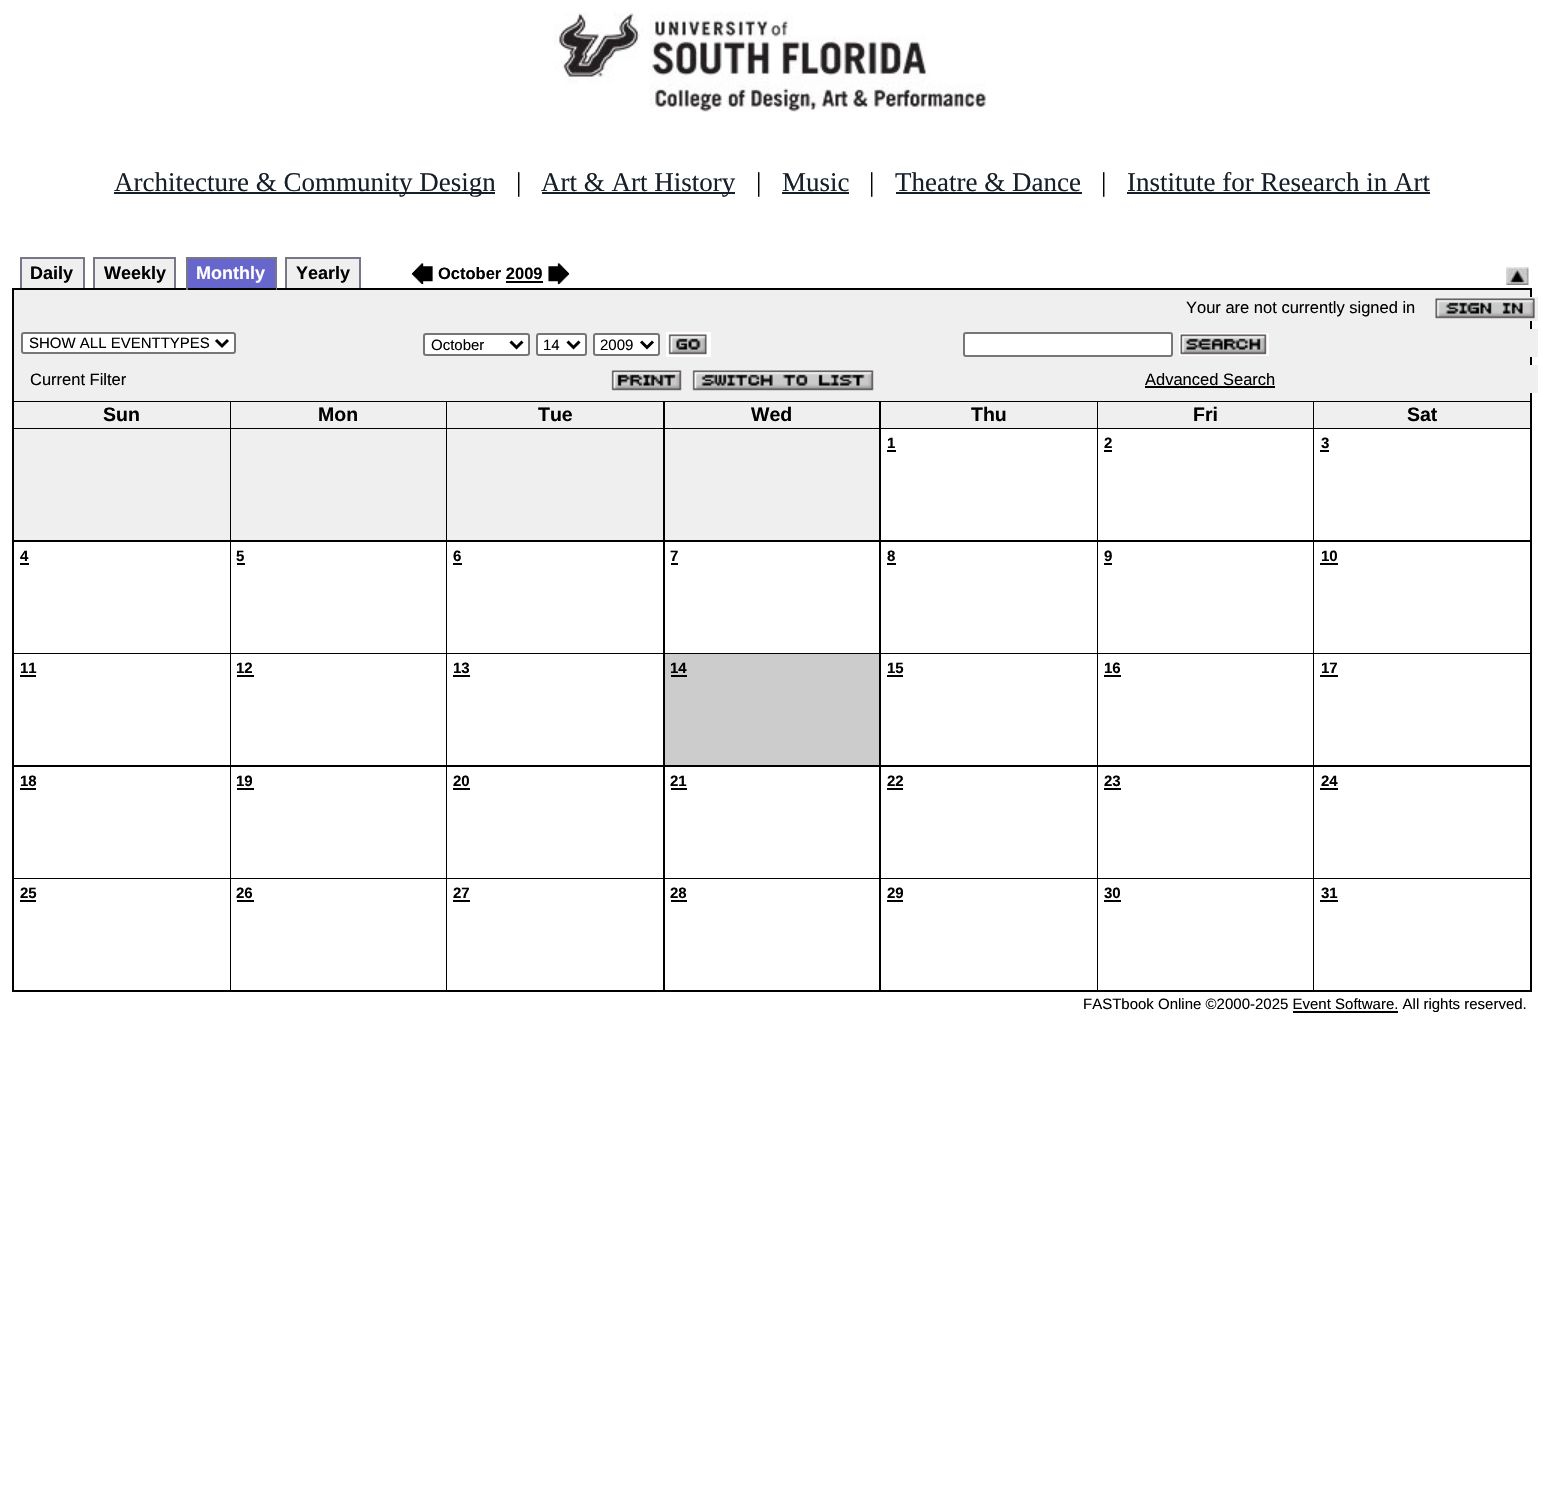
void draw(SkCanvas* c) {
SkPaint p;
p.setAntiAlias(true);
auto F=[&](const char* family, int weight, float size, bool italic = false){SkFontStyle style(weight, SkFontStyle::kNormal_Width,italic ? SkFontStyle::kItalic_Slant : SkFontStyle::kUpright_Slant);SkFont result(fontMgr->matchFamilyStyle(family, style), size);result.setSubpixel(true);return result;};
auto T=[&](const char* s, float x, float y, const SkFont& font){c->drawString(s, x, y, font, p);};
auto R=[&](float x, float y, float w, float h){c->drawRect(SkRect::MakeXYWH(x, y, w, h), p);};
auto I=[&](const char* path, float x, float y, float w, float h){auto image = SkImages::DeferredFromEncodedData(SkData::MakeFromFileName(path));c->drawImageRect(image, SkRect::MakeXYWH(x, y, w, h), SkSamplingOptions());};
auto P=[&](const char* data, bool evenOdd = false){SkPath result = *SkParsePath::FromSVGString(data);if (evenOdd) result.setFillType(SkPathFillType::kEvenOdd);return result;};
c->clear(0xffffffff);
I("1.png",554,12,432,101);
p.setColor(0xff17202a);
R(114,192,381,2);
auto f1 = F("Liberation Serif",400,27);
T("Architecture & Community Design",114,191,f1);
p.setColor(0xff000000);
T("|",516,191,f1);
p.setColor(0xff17202a);
R(542,192,193,2);
T("Art & Art History",541,191,f1);
p.setColor(0xff000000);
T("|",756,191,f1);
p.setColor(0xff17202a);
T("Music",782,191,f1);
R(782,192,67,2);
p.setColor(0xff000000);
T("|",869,191,f1);
p.setColor(0xff17202a);
T("Theatre & Dance",895,191,f1);
R(896,192,186,2);
p.setColor(0xff000000);
T("|",1101,191,f1);
p.setColor(0xff17202a);
T("Institute for Research in Art",1127,191,f1);
R(1127,192,303,2);
p.setColor(0xffefefef);
R(22,259,61,29);
auto f2 = F("Liberation Sans",700,18);
p.setColor(0xff000000);
T("Daily",30,279,f2);
p.setColor(0xff777788);
R(20,257,64,2);
R(83,257,2,31);
R(20,257,2,31);
p.setColor(0xffefefef);
R(95,259,79,29);
p.setColor(0xff000000);
T("Weekly",104,279,f2);
p.setColor(0xff777788);
R(93,257,83,2);
R(174,257,2,31);
R(93,257,2,31);
p.setColor(0xff6666cc);
R(188,259,87,29);
p.setColor(0xffffffff);
T("Monthly",196,279,f2);
p.setColor(0xff777788);
R(186,257,90,2);
p.setColor(0xff000000);
R(12,288,1520,2);
p.setColor(0xff777788);
R(275,257,2,33);
p.setColor(0xff000000);
R(275,288,1,2);
p.setColor(0xff777788);
R(186,257,2,33);
p.setColor(0xffefefef);
R(287,259,72,29);
p.setColor(0xff000000);
T("Yearly",296,279,f2);
p.setColor(0xff777788);
R(285,257,75,2);
R(359,257,2,31);
R(285,257,2,31);
I("2.png",411,263,22,22);
auto f3 = F("Liberation Sans",700,16.5);
p.setColor(0xff000000);
T("October 2009",438,279,f3);
R(506,281,37,2);
I("3.png",548,263,22,22);
I("4.png",1506,267,23,18);
p.setColor(0xffefefef);
R(14,290,1516,111);
p.setColor(0xff000000);
R(1530,288,2,113);
R(12,288,2,113);
p.setColor(0xffefefef);
R(1530,297,8,24);
auto f4 = F("Liberation Sans",400,16.5);
p.setColor(0xff000000);
T("Your are not currently signed in",1186,313,f4);
I("5.png",1435,298,100,21);
p.setColor(0xffefefef);
R(1530,329,8,28);
p.setColor(0xffffffff);
c->drawRoundRect(SkRect::MakeXYWH(22,333,213,20),2,2,p);
p.setStroke(true);
p.setStrokeWidth(2);
p.setColor(0xff767676);
c->drawRoundRect(SkRect::MakeXYWH(22,333,213,20),2,2,p);
p.setStrokeWidth(3);
p.setColor(0xff000000);
c->drawPath(P("M216 340l6 6l6-6"),p);
auto f5 = F("Liberation Sans",400,15);
p.setStroke(false);
T("SHOW ALL EVENTTYPES",29,348,f5);
p.setColor(0xffffffff);
c->drawRoundRect(SkRect::MakeXYWH(424,334,105,21),2,2,p);
p.setStroke(true);
p.setStrokeWidth(2);
p.setColor(0xff767676);
c->drawRoundRect(SkRect::MakeXYWH(424,334,105,21),2,2,p);
p.setStrokeWidth(3);
p.setColor(0xff000000);
c->drawPath(P("M510.5 341.5l6 6l6-6"),p);
p.setStroke(false);
T("October",431,350,f5);
p.setColor(0xffffffff);
c->drawRoundRect(SkRect::MakeXYWH(537,334,49,21),2,2,p);
p.setStroke(true);
p.setStrokeWidth(2);
p.setColor(0xff767676);
c->drawRoundRect(SkRect::MakeXYWH(537,334,49,21),2,2,p);
p.setStrokeWidth(3);
p.setColor(0xff000000);
c->drawPath(P("M567.5 341.5l6 6l6-6"),p);
p.setStroke(false);
T("14",543,350,f5);
p.setColor(0xffffffff);
c->drawRoundRect(SkRect::MakeXYWH(594,334,65,21),2,2,p);
p.setStroke(true);
p.setStrokeWidth(2);
p.setColor(0xff767676);
c->drawRoundRect(SkRect::MakeXYWH(594,334,65,21),2,2,p);
p.setStrokeWidth(3);
p.setColor(0xff000000);
c->drawPath(P("M641 341.5l6 6l6-6"),p);
p.setStroke(false);
T("2009",600,350,f5);
p.setColor(0xffffffff);
R(666,332,45,25);
I("6.png",668,334,39,21);
c->drawRoundRect(SkRect::MakeXYWH(964,333,208,23),2,2,p);
p.setStroke(true);
p.setStrokeWidth(2);
p.setColor(0xff767676);
c->drawRoundRect(SkRect::MakeXYWH(964,333,208,23),2,2,p);
p.setStroke(false);
p.setColor(0xffffffff);
R(1179,333,90,23);
I("7.png",1180,334,87,21);
p.setColor(0xffefefef);
R(1530,365,8,28);
p.setColor(0xff000000);
T("Current Filter",30,385,f4);
I("8.png",611,370,71,21);
I("9.png",692,370,182,21);
T("Advanced Search",1145,385,f4);
R(1145,386,130,2);
R(12,401,1520,1);
R(12,401,2,591);
p.setColor(0xffefefef);
R(14,402,1083,26);
p.setColor(0xff000000);
R(1530,402,2,590);
R(14,428,1518,1);
R(230,402,2,27);
auto f6 = F("Liberation Sans",700,19.5);
T("Sun",103,421,f6);
p.setColor(0xffefefef);
R(231,402,1,26);
p.setColor(0xff000000);
R(446,402,2,27);
T("Mon",318,421,f6);
p.setColor(0xffefefef);
R(447,402,1,26);
p.setColor(0xff000000);
R(663,402,2,590);
T("Tue",538,421,f6);
R(879,402,2,590);
T("Wed",751,421,f6);
R(1097,402,2,27);
T("Thu",971,421,f6);
p.setColor(0xffefefef);
R(1098,402,215,26);
p.setColor(0xff000000);
R(1313,402,2,27);
T("Fri",1193,421,f6);
p.setColor(0xffefefef);
R(1314,402,216,26);
p.setColor(0xff000000);
T("Sat",1407,421,f6);
p.setColor(0xffefefef);
R(14,429,216,111);
p.setColor(0xff000000);
R(230,429,1,563);
R(14,540,217,2);
p.setColor(0xffefefef);
R(231,429,215,111);
p.setColor(0xff000000);
R(446,429,1,563);
R(231,540,650,2);
p.setColor(0xffefefef);
R(447,429,216,111);
R(665,429,214,111);
p.setColor(0xff000000);
R(1097,429,1,563);
R(881,540,217,2);
auto f7 = F("Liberation Sans",700,15);
T("1",887,448,f7);
R(887,450,9,2);
R(1313,429,1,563);
R(1098,540,434,2);
T("2",1104,448,f7);
R(1104,450,8,2);
T("3",1321,448,f7);
R(1320,450,9,2);
R(14,653,1518,1);
T("4",20,561,f7);
R(20,563,9,2);
T("5",236,561,f7);
R(237,563,8,2);
T("6",453,561,f7);
R(453,563,9,2);
T("7",670,561,f7);
R(671,563,7,2);
T("8",887,561,f7);
R(887,563,9,2);
T("9",1104,561,f7);
R(1104,563,8,2);
T("10",1321,561,f7);
R(1320,563,18,2);
R(14,765,1518,2);
T("11",20,673,f7);
R(20,675,16,2);
T("12",236,673,f7);
R(237,675,17,2);
T("13",453,673,f7);
R(453,675,17,2);
p.setColor(0xffcccccc);
R(665,654,214,111);
p.setColor(0xff000000);
T("14",670,673,f7);
R(671,675,16,2);
T("15",887,673,f7);
R(887,675,16,2);
T("16",1104,673,f7);
R(1104,675,17,2);
T("17",1321,673,f7);
R(1320,675,18,2);
R(14,878,1518,1);
T("18",20,786,f7);
R(20,788,16,2);
T("19",236,786,f7);
R(237,788,17,2);
T("20",453,786,f7);
R(453,788,17,2);
T("21",670,786,f7);
R(671,788,16,2);
T("22",887,786,f7);
R(887,788,16,2);
T("23",1104,786,f7);
R(1104,788,17,2);
T("24",1321,786,f7);
R(1320,788,18,2);
R(14,990,1518,2);
T("25",20,898,f7);
R(20,900,16,2);
T("26",236,898,f7);
R(237,900,17,2);
T("27",453,898,f7);
R(453,900,17,2);
T("28",670,898,f7);
R(671,900,16,2);
T("29",887,898,f7);
R(887,900,16,2);
T("30",1104,898,f7);
R(1104,900,17,2);
T("31",1321,898,f7);
R(1320,900,18,2);
T("FASTbook Online ©2000-2025 Event Software. All rights reserved.",1083,1009,f5);
R(1293,1011,105,2);
}
